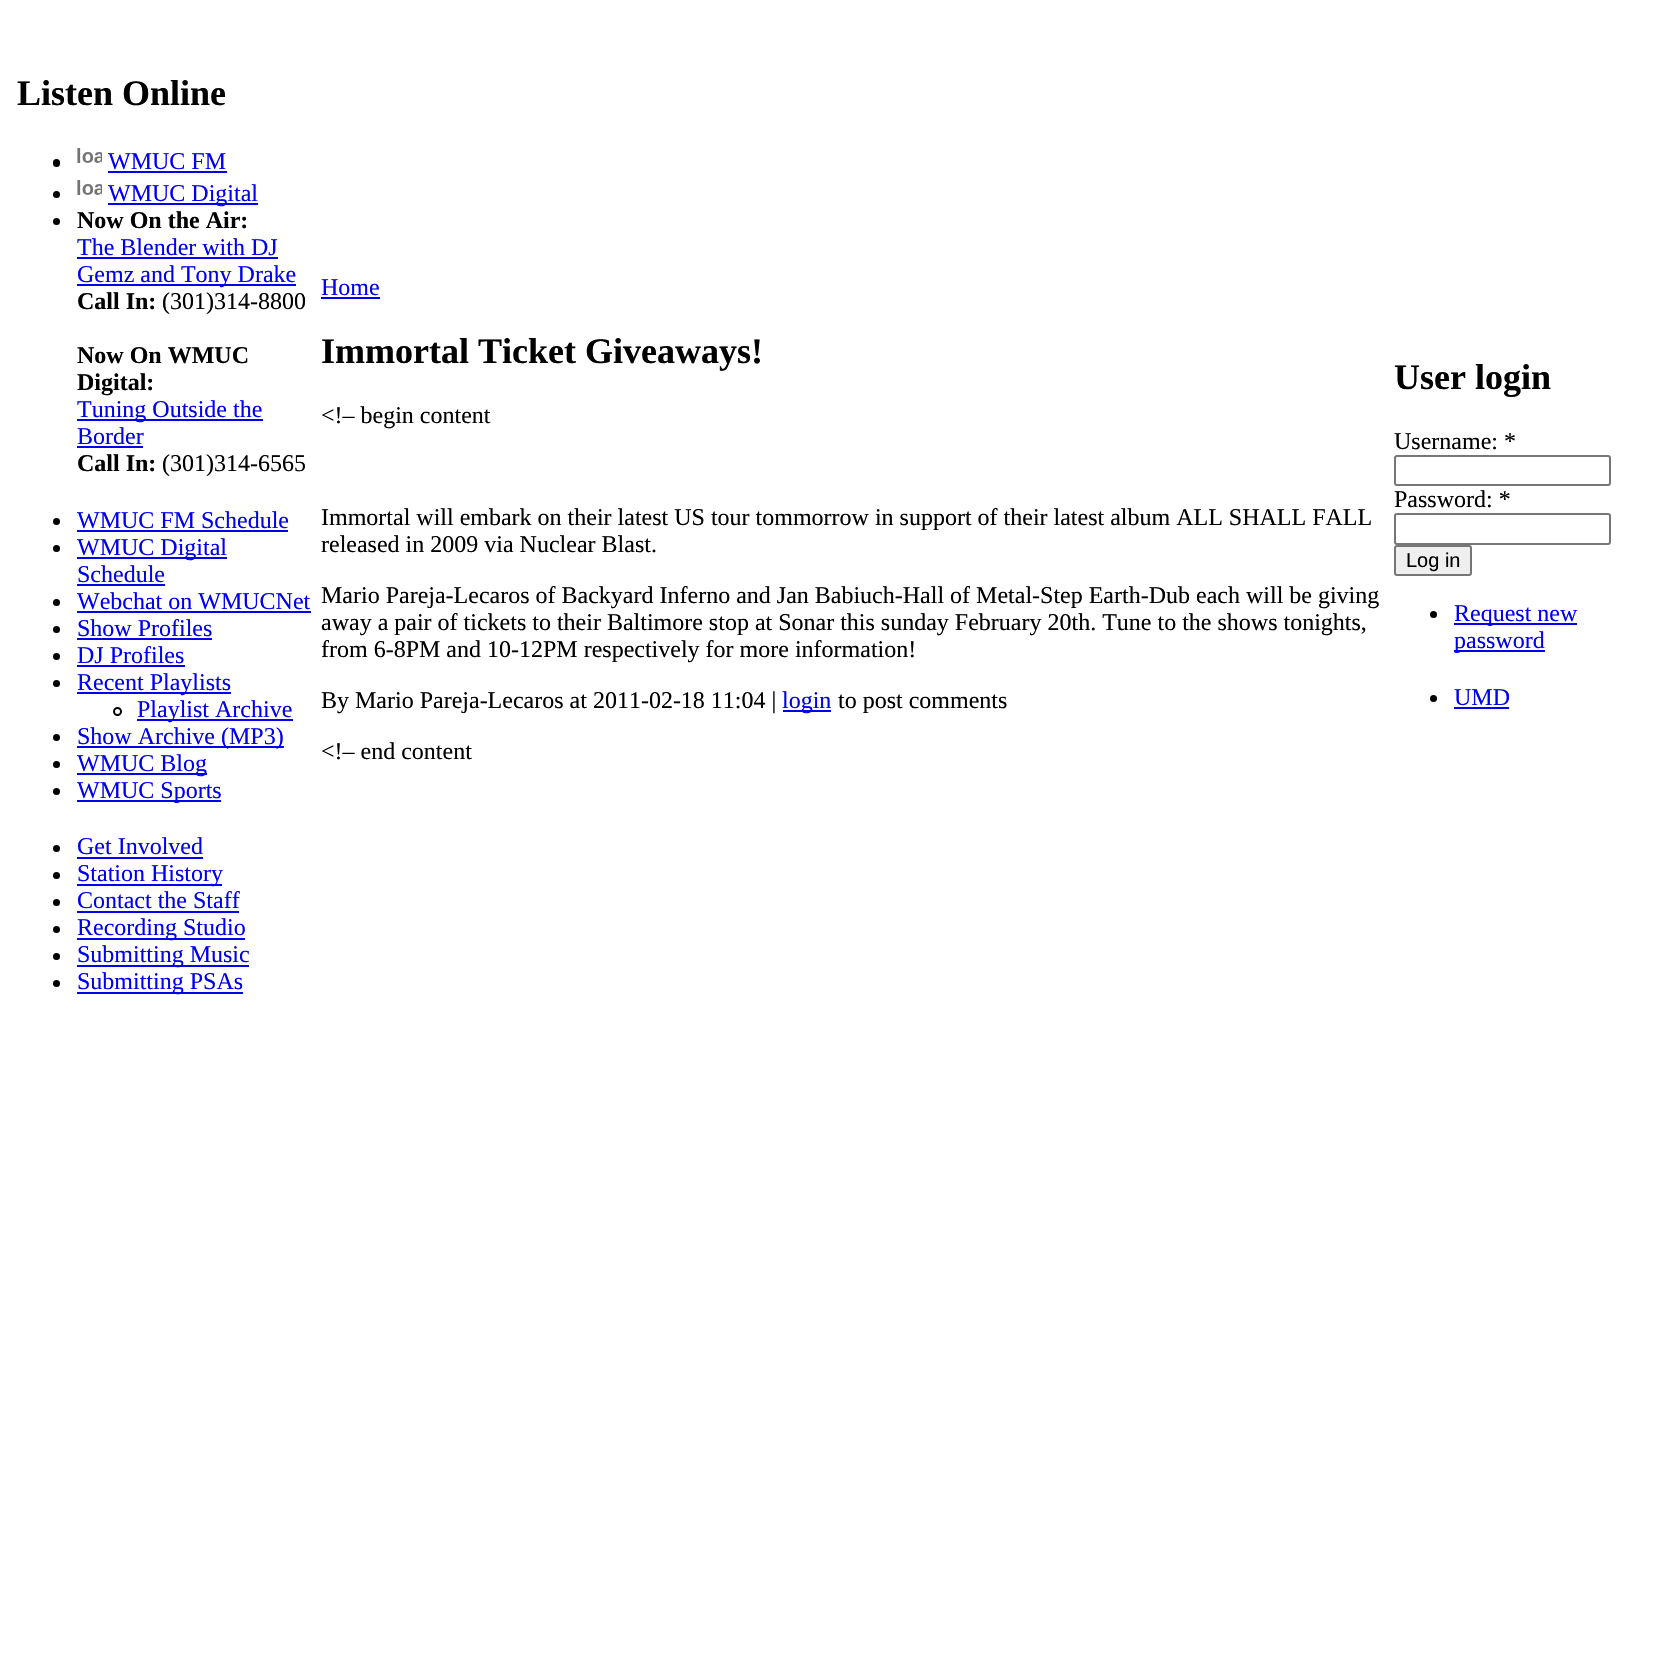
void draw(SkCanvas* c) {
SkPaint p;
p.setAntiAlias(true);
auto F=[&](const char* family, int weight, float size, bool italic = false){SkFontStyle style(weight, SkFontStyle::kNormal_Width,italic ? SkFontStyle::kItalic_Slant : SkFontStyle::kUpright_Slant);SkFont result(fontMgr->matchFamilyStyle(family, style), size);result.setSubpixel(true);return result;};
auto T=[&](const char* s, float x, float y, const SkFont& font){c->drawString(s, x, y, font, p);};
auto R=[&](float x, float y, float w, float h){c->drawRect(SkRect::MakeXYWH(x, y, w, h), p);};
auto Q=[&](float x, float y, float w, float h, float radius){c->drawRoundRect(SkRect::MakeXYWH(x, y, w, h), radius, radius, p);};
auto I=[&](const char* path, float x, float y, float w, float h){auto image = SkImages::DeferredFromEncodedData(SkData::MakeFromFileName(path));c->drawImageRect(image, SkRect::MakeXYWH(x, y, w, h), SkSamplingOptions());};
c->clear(0xffffffff);
auto f1 = F("Liberation Serif",700,36);
p.setColor(0xff000000);
T("Listen Online",17,105,f1);
Q(53,159,7,8,3.5);
I("1.png",77,148,25,15);
auto f2 = F("Liberation Serif",400,24);
p.setColor(0xff0000ee);
T("WMUC FM",108,169,f2);
R(108,171,119,2);
p.setColor(0xff000000);
c->drawCircle(56.5,194.5,3.5,p);
I("1.png",77,180,25,15);
p.setColor(0xff0000ee);
R(108,203,150,2);
T("WMUC Digital",108,201,f2);
p.setColor(0xff000000);
c->drawCircle(56.5,221.5,3.5,p);
auto f3 = F("Liberation Serif",700,24);
T("Now On the Air:",77,228,f3);
p.setColor(0xff0000ee);
T("The Blender with DJ",77,255,f2);
R(77,257,201,2);
R(77,284,219,2);
T("Gemz and Tony Drake",77,282,f2);
p.setColor(0xff000000);
T("Call In:",77,309,f3);
T("(301)314-8800",162,309,f2);
T("Now On WMUC",77,363,f3);
T("Digital:",77,390,f3);
p.setColor(0xff0000ee);
R(77,419,186,2);
T("Tuning Outside the",77,417,f2);
T("Border",77,444,f2);
R(77,446,66,2);
p.setColor(0xff000000);
T("Call In:",77,471,f3);
T("(301)314-6565",162,471,f2);
c->drawCircle(56.5,521.5,3.5,p);
p.setColor(0xff0000ee);
T("WMUC FM Schedule",77,528,f2);
R(77,530,211,2);
p.setColor(0xff000000);
c->drawCircle(56.5,548.5,3.5,p);
p.setColor(0xff0000ee);
R(77,557,150,2);
T("WMUC Digital",77,555,f2);
T("Schedule",77,582,f2);
R(77,584,88,2);
p.setColor(0xff000000);
c->drawCircle(56.5,602.5,3.5,p);
p.setColor(0xff0000ee);
T("Webchat on WMUCNet",77,609,f2);
R(77,611,234,2);
p.setColor(0xff000000);
c->drawCircle(56.5,629.5,3.5,p);
p.setColor(0xff0000ee);
T("Show Profiles",77,636,f2);
R(77,638,135,2);
p.setColor(0xff000000);
c->drawCircle(56.5,656.5,3.5,p);
p.setColor(0xff0000ee);
T("DJ Profiles",77,663,f2);
R(77,665,108,2);
p.setColor(0xff000000);
c->drawCircle(56.5,683.5,3.5,p);
p.setColor(0xff0000ee);
R(77,692,154,2);
T("Recent Playlists",77,690,f2);
p.setStroke(true);
p.setStrokeWidth(2);
p.setColor(0xff000000);
c->drawCircle(117.5,711.5,3.5,p);
p.setStroke(false);
p.setColor(0xff0000ee);
R(137,719,156,2);
T("Playlist Archive",137,717,f2);
p.setColor(0xff000000);
c->drawCircle(56.5,737.5,3.5,p);
p.setColor(0xff0000ee);
R(77,746,207,2);
T("Show Archive (MP3)",77,744,f2);
p.setColor(0xff000000);
c->drawCircle(56.5,764.5,3.5,p);
p.setColor(0xff0000ee);
R(77,773,130,2);
T("WMUC Blog",77,771,f2);
p.setColor(0xff000000);
c->drawCircle(56.5,791.5,3.5,p);
p.setColor(0xff0000ee);
R(77,800,144,2);
T("WMUC Sports",77,798,f2);
p.setColor(0xff000000);
c->drawCircle(56.5,848.5,3.5,p);
p.setColor(0xff0000ee);
T("Get Involved",77,854,f2);
R(77,857,126,2);
p.setColor(0xff000000);
c->drawCircle(56.5,875.5,3.5,p);
p.setColor(0xff0000ee);
R(77,884,145,2);
T("Station History",77,881,f2);
p.setColor(0xff000000);
c->drawCircle(56.5,902.5,3.5,p);
p.setColor(0xff0000ee);
T("Contact the Staff",77,908,f2);
R(77,911,162,2);
p.setColor(0xff000000);
c->drawCircle(56.5,929.5,3.5,p);
p.setColor(0xff0000ee);
R(77,938,168,2);
T("Recording Studio",77,935,f2);
p.setColor(0xff000000);
c->drawCircle(56.5,956.5,3.5,p);
p.setColor(0xff0000ee);
R(77,965,172,2);
T("Submitting Music",77,962,f2);
p.setColor(0xff000000);
c->drawCircle(56.5,983.5,3.5,p);
p.setColor(0xff0000ee);
R(77,992,166,2);
T("Submitting PSAs",77,989,f2);
T("Home",321,295,f2);
R(321,297,59,2);
p.setColor(0xff000000);
T("Immortal Ticket Giveaways!",321,363,f1);
T("<!– begin content",321,423,f2);
T("Immortal will embark on their latest US tour tommorrow in support of their latest album ALL SHALL FALL",321,525,f2);
T("released in 2009 via Nuclear Blast.",321,552,f2);
T("Mario Pareja-Lecaros of Backyard Inferno and Jan Babiuch-Hall of Metal-Step Earth-Dub each will be giving",321,603,f2);
T("away a pair of tickets to their Baltimore stop at Sonar this sunday February 20th. Tune to the shows tonights,",321,630,f2);
T("from 6-8PM and 10-12PM respectively for more information!",321,657,f2);
T("By Mario Pareja-Lecaros at 2011-02-18 11:04 |",321,708,f2);
p.setColor(0xff0000ee);
R(783,710,48,2);
T("login",782,708,f2);
p.setColor(0xff000000);
T("to post comments",838,708,f2);
T("<!– end content",321,759,f2);
T("User login",1394,389,f1);
T("Username: *",1394,449,f2);
p.setStroke(true);
p.setColor(0xff767676);
c->drawRoundRect(SkRect::MakeXYWH(1395,456,215,29),2,2,p);
p.setStroke(false);
p.setColor(0xff000000);
T("Password: *",1394,507,f2);
p.setStroke(true);
p.setColor(0xff767676);
c->drawRoundRect(SkRect::MakeXYWH(1395,514,215,30),2,2,p);
p.setStroke(false);
p.setColor(0xffefefef);
c->drawRoundRect(SkRect::MakeXYWH(1395,546,76,29),2,2,p);
p.setStroke(true);
p.setColor(0xff767676);
c->drawRoundRect(SkRect::MakeXYWH(1395,546,76,29),2,2,p);
auto f4 = F("Liberation Sans",400,20);
p.setStroke(false);
p.setColor(0xff000000);
T("Log in",1406,567,f4);
c->drawCircle(1433.5,614.5,3.5,p);
p.setColor(0xff0000ee);
R(1454,623,123,2);
T("Request new",1454,621,f2);
R(1454,650,91,2);
T("password",1454,648,f2);
p.setColor(0xff000000);
c->drawCircle(1433.5,698.5,3.5,p);
p.setColor(0xff0000ee);
T("UMD",1454,705,f2);
R(1454,707,55,2);
}
